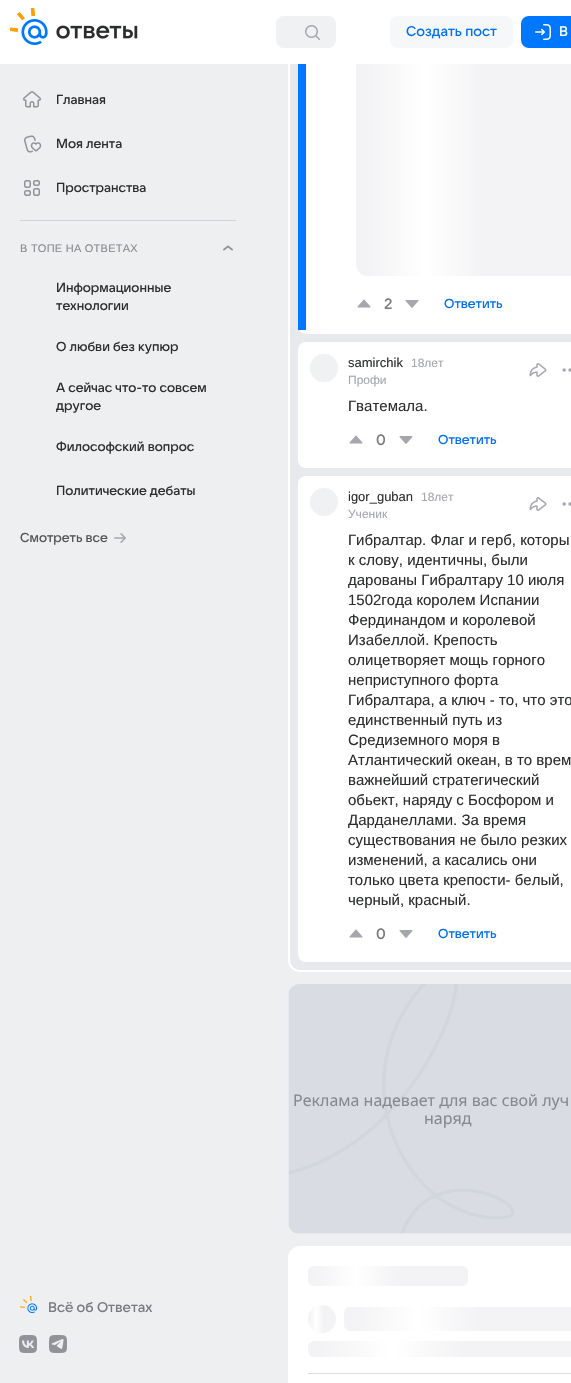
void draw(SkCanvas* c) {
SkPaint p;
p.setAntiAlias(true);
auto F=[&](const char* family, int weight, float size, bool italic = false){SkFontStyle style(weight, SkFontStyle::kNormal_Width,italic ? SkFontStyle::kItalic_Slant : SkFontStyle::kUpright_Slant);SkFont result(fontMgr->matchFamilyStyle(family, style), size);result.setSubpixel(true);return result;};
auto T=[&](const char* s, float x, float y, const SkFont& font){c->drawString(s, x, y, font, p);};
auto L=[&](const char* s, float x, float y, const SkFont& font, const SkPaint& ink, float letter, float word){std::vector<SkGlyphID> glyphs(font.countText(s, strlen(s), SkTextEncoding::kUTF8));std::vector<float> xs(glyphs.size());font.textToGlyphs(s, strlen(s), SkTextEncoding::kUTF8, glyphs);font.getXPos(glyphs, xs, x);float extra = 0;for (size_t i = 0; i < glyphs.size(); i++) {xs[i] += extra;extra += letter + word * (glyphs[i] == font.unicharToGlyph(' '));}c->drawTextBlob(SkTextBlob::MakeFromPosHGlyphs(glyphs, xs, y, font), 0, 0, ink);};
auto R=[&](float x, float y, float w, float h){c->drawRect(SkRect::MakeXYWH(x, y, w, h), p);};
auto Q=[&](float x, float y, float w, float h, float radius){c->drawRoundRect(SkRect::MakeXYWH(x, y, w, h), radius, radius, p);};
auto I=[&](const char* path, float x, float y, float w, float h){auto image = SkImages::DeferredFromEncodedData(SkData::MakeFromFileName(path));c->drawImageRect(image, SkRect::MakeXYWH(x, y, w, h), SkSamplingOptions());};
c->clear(0xffeeeff1);
p.setColor(0xffffffff);
Q(288,-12,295,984,12);
p.setColor(0xffe7e9ec);
Q(290,-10,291,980,10);
p.setColor(0xffffffff);
Q(298,-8,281,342,8);
{
const SkColor colors[] = {0xfff3f3f5,0xffffffff,0xfff3f3f5};
const float stops[] = {.05,.3,.55};
const SkPoint ends[] = {{356,156}, {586,156}};
p.setShader(SkGradientShader::MakeLinear(ends, colors, stops, 3, SkTileMode::kClamp));
p.setAlpha(255);
}
Q(356,36,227,240,12);
p.setShader(nullptr);
p.setColor(0xffffffff);
R(0,0,571,64);
I("1.png",10,8,128,37);
p.setColor(0xfff0f1f3);
Q(276,16,60,32,8);
I("2.png",305,25,15,15);
p.setColor(0xfff6f7f8);
Q(390,16,123,32,8);
auto f1 = F("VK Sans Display",500,14);
p.setColor(0xff0070f0);
T("Создать пост",406,36,f1);
p.setColor(0xff0077ff);
Q(521,16,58,32,8);
I("3.png",535,24,16,16);
p.setColor(0xffffffff);
T("В",559,36,f1);
I("4.png",23,91,18,17);
auto f2 = F("VK Sans Display",500,13);
p.setColor(0xff2c2d2e);
T("Главная",56,104,f2);
I("5.png",24,135,18,18);
T("Моя лента",56,148,f2);
I("6.png",24,180,16,16);
T("Пространства",56,192,f2);
p.setColor(0xffd1d4db);
R(20,220,216,1);
auto f3 = F("Liberation Sans",400,11);
p.setColor(0xff87898f);
L("В ТОПЕ НА ОТВЕТАХ",20,252,f3,p,.25,0);
I("7.png",223,245,10,6);
p.setColor(0xff2c2d2e);
T("Информационные",56,292,f2);
T("технологии",56,310,f2);
T("О любви без купюр",56,351,f2);
T("А сейчас что-то совсем",56,392,f2);
T("другое",56,410,f2);
T("Философский вопрос",56,451,f2);
T("Политические дебаты",56,495,f2);
p.setColor(0xff535455);
T("Смотреть все",20,542,f2);
I("8.png",114,533,12,10);
I("9.png",20,1296,18,18);
p.setColor(0xff797a80);
T("Всё об Ответах",48,1312,f1);
I("10.png",19,1335,18,18);
I("11.png",49,1335,18,18);
p.setColor(0xff0077ff);
R(298,64,8,266);
I("12.png",357,299,14,9);
auto f4 = F("VK Sans Display",500,15);
p.setColor(0xff797a80);
T("2",384,309,f4);
I("13.png",405,300,14,8);
p.setColor(0xff0070f0);
T("Ответить",444,308,f2);
p.setColor(0xffffffff);
Q(298,342,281,126,8);
p.setColor(0xfff0f1f3);
c->drawCircle(324,368,14,p);
auto f5 = F("Liberation Sans",400,13);
p.setColor(0xff2c2d2e);
T("samirchik",348,367,f5);
auto f6 = F("Liberation Sans",400,12);
p.setColor(0xffa5a7ad);
T("Профи",348,384,f6);
T("18лет",411,367,f6);
I("14.png",529,363,18,14);
I("15.png",562,368,9,4);
auto f7 = F("Liberation Sans",400,15);
p.setColor(0xff2c2d2e);
T("Гватемала.",348,411,f7);
I("12.png",349,435,14,9);
p.setColor(0xff797a80);
T("0",376,445,f4);
I("13.png",399,436,14,8);
p.setColor(0xff0070f0);
T("Ответить",438,444,f2);
p.setColor(0xffffffff);
Q(298,476,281,486,8);
p.setColor(0xfff0f1f3);
c->drawCircle(324,502,14,p);
p.setColor(0xff2c2d2e);
T("igor_guban",348,501,f5);
p.setColor(0xffa5a7ad);
T("Ученик",348,518,f6);
T("18лет",421,501,f6);
I("14.png",529,497,18,14);
I("15.png",562,502,9,4);
p.setColor(0xff2c2d2e);
T("Гибралтар. Флаг и герб, которы",348,545,f7);
T("к слову, идентичны, были",348,565,f7);
T("дарованы Гибралтару 10 июля",348,585,f7);
T("1502года королем Испании",348,605,f7);
T("Фердинандом и королевой",348,625,f7);
T("Изабеллой. Крепость",348,645,f7);
T("олицетворяет мощь горного",348,665,f7);
T("неприступного форта",348,685,f7);
T("Гибралтара, а ключ - то, что это",348,705,f7);
T("единственный путь из",348,725,f7);
T("Средиземного моря в",348,745,f7);
T("Атлантический океан, в то врем",348,765,f7);
T("важнейший стратегический",348,785,f7);
T("обьект, наряду с Босфором и",348,805,f7);
T("Дарданеллами. За время",348,825,f7);
T("существования не было резких",348,845,f7);
T("изменений, а касались они",348,865,f7);
T("только цвета крепости- белый,",348,885,f7);
T("черный, красный.",348,905,f7);
I("12.png",349,929,14,9);
p.setColor(0xff797a80);
T("0",376,939,f4);
I("13.png",399,930,14,8);
p.setColor(0xff0070f0);
T("Ответить",438,938,f2);
p.setColor(0xffe7e9ed);
Q(288,984,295,250,12);
I("16.png",289,984,282,249);
auto f8 = F("Noto Sans",400,16);
p.setColor(0xff87898f);
T("Реклама надевает для вас свой луч",293,1106,f8);
T("наряд",424,1124,f8);
p.setColor(0xffffffff);
Q(288,1246,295,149,12);
{
const SkColor colors[] = {0xfff3f3f5,0xffffffff,0xfff3f3f5};
const float stops[] = {.05,.3,.55};
const SkPoint ends[] = {{308,1276}, {468,1276}};
p.setShader(SkGradientShader::MakeLinear(ends, colors, stops, 3, SkTileMode::kClamp));
p.setAlpha(255);
}
Q(308,1266,160,20,6);
p.setShader(nullptr);
p.setColor(0xfff3f3f5);
c->drawCircle(322,1319,14,p);
{
const SkColor colors[] = {0x00ffffff,0xffffffff,0x00ffffff};
const float stops[] = {.05,.3,.55};
const SkPoint ends[] = {{308,1319}, {336,1319}};
p.setShader(SkGradientShader::MakeLinear(ends, colors, stops, 3, SkTileMode::kClamp));
p.setAlpha(255);
}
c->drawCircle(322,1319,14,p);
{
const SkColor colors[] = {0xfff3f3f5,0xffffffff,0xfff3f3f5};
const float stops[] = {.05,.3,.55};
const SkPoint ends[] = {{344,1319}, {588,1319}};
p.setShader(SkGradientShader::MakeLinear(ends, colors, stops, 3, SkTileMode::kClamp));
p.setAlpha(255);
}
Q(344,1307,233,24,6);
{
const SkColor colors[] = {0xfff3f3f5,0xffffffff,0xfff3f3f5};
const float stops[] = {.05,.3,.55};
const SkPoint ends[] = {{308,1349}, {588,1349}};
p.setShader(SkGradientShader::MakeLinear(ends, colors, stops, 3, SkTileMode::kClamp));
p.setAlpha(255);
}
Q(308,1341,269,16,6);
p.setShader(nullptr);
p.setColor(0xffdadce0);
R(308,1373,263,1);
}
